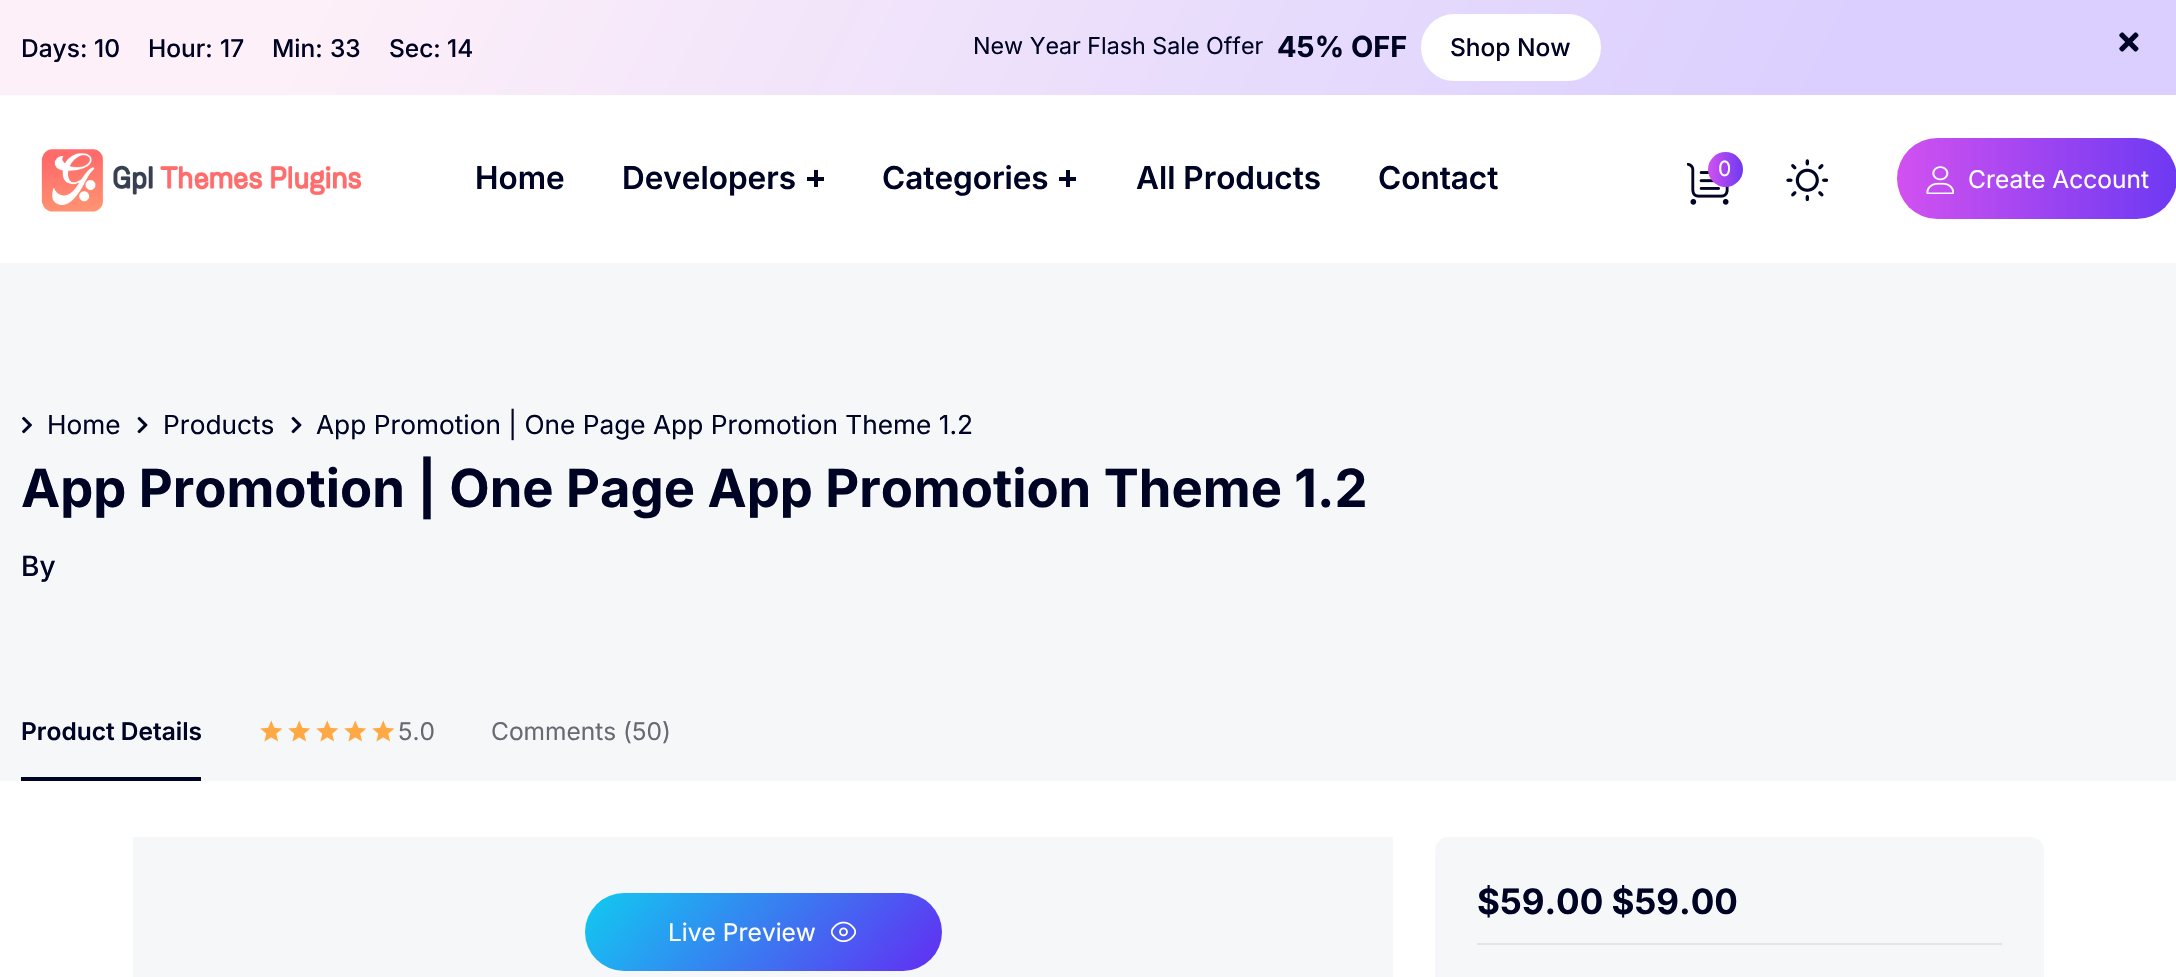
void draw(SkCanvas* c) {
SkPaint p;
p.setAntiAlias(true);
auto F=[&](const char* family, int weight, float size, bool italic = false){SkFontStyle style(weight, SkFontStyle::kNormal_Width,italic ? SkFontStyle::kItalic_Slant : SkFontStyle::kUpright_Slant);SkFont result(fontMgr->matchFamilyStyle(family, style), size);result.setSubpixel(true);return result;};
auto T=[&](const char* s, float x, float y, const SkFont& font){c->drawString(s, x, y, font, p);};
auto R=[&](float x, float y, float w, float h){c->drawRect(SkRect::MakeXYWH(x, y, w, h), p);};
auto Q=[&](float x, float y, float w, float h, float radius){c->drawRoundRect(SkRect::MakeXYWH(x, y, w, h), radius, radius, p);};
auto I=[&](const char* path, float x, float y, float w, float h){auto image = SkImages::DeferredFromEncodedData(SkData::MakeFromFileName(path));c->drawImageRect(image, SkRect::MakeXYWH(x, y, w, h), SkSamplingOptions());};
c->clear(0xffffffff);
{
const SkColor colors[] = {0xfffef0f8,0xffdacfff};
const float stops[] = {.14,.84};
const SkPoint ends[] = {{205,-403}, {1972,497}};
p.setShader(SkGradientShader::MakeLinear(ends, colors, stops, 2, SkTileMode::kClamp));
p.setAlpha(255);
}
R(0,0,2176,95);
auto f1 = F("Inter",500,24.5);
p.setShader(nullptr);
p.setColor(0xff000424);
T("Days:",21,57,f1);
T("10",94,57,f1);
T("Hour:",148,57,f1);
T("17",220,57,f1);
T("Min:",272,57,f1);
T("33",330,57,f1);
T("Sec:",389,57,f1);
T("14",447,57,f1);
auto f2 = F("Inter",400,23.25);
T("New Year Flash Sale Offer",973,54,f2);
auto f3 = F("Inter",700,29);
T("45% OFF",1277,57,f3);
p.setColor(0xffffffff);
c->drawRoundRect(SkRect::MakeXYWH(1422,15,178,65),32.5,32.5,p);
p.setStroke(true);
p.setStrokeWidth(2);
c->drawRoundRect(SkRect::MakeXYWH(1422,15,178,65),32.5,32.5,p);
p.setStroke(false);
p.setColor(0xff000424);
T("Shop Now",1450,56,f1);
I("1.png",2119,32,20,20);
I("2.png",41,149,320,63);
auto f4 = F("Inter",600,31.5);
T("Home",475,189,f4);
T("Developers",622,189,f4);
R(814,170,4,17);
R(807,177,17,4);
T("Categories",882,189,f4);
R(1066,170,4,17);
R(1059,177,17,4);
T("All Products",1136,189,f4);
T("Contact",1378,189,f4);
I("3.png",1687,163,42,42);
{
const SkColor colors[] = {0xffd251f0,0xff6d39f2};
const float stops[] = {0,1};
const SkPoint ends[] = {{1708,170}, {1743,170}};
p.setShader(SkGradientShader::MakeLinear(ends, colors, stops, 2, SkTileMode::kClamp));
p.setAlpha(255);
}
c->drawCircle(1725.5,169.5,17.5,p);
auto f5 = F("Inter",400,21);
p.setShader(nullptr);
p.setColor(0xffffffff);
T("0",1718,176,f5);
I("4.png",1786,159,42,42);
{
const SkColor colors[] = {0xffd251f0,0xff6d39f2};
const float stops[] = {0,1};
const SkPoint ends[] = {{1897,179}, {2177,179}};
p.setShader(SkGradientShader::MakeLinear(ends, colors, stops, 2, SkTileMode::kClamp));
p.setAlpha(255);
}
Q(1897,138,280,81,40.5);
I("5.png",1926,166,28,28);
auto f6 = F("Inter",400,24.5);
p.setShader(nullptr);
p.setColor(0xffffffff);
T("Create Account",1968,188,f6);
p.setColor(0xfff5f7f9);
R(0,263,2176,518);
I("6.png",22,416,10,18);
auto f7 = F("Inter",400,26.25);
p.setColor(0xff000424);
T("Home",47,434,f7);
I("7.png",137,416,11,18);
T("Products",163,434,f7);
I("7.png",291,416,11,18);
T("App Promotion | One Page App Promotion Theme 1.2",316,434,f7);
auto f8 = F("Inter",700,52.5);
T("App Promotion | One Page App Promotion Theme 1.2",21,507,f8);
auto f9 = F("Inter",500,28);
T("By",21,576,f9);
R(21,777,180,4);
auto f10 = F("Inter",600,24.5);
T("Product Details",21,740,f10);
I("8.png",260,720,23,22);
I("8.png",288,720,23,22);
I("8.png",316,720,23,22);
I("8.png",344,720,23,22);
I("8.png",372,720,23,22);
p.setColor(0xff686973);
T("5.0",398,740,f6);
T("Comments (50)",491,740,f6);
p.setColor(0xfff5f7f9);
Q(1435,837,609,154,14);
p.setColor(0xffe4e3e8);
R(1477,943,525,2);
auto f11 = F("Inter",700,35);
p.setColor(0xff000424);
T("$59.00 $59.00",1477,914,f11);
p.setColor(0xfff5f7f9);
R(133,837,1260,140);
{
const SkColor colors[] = {0xff5e36f2,0xff05e0f0};
const float stops[] = {.05,1};
const SkPoint ends[] = {{881,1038}, {614,797}};
p.setShader(SkGradientShader::MakeLinear(ends, colors, stops, 2, SkTileMode::kClamp));
p.setAlpha(255);
}
Q(585,893,357,78,39);
p.setShader(nullptr);
p.setColor(0xffffffff);
T("Live Preview",668,941,f6);
I("9.png",831,921,25,22);
}
